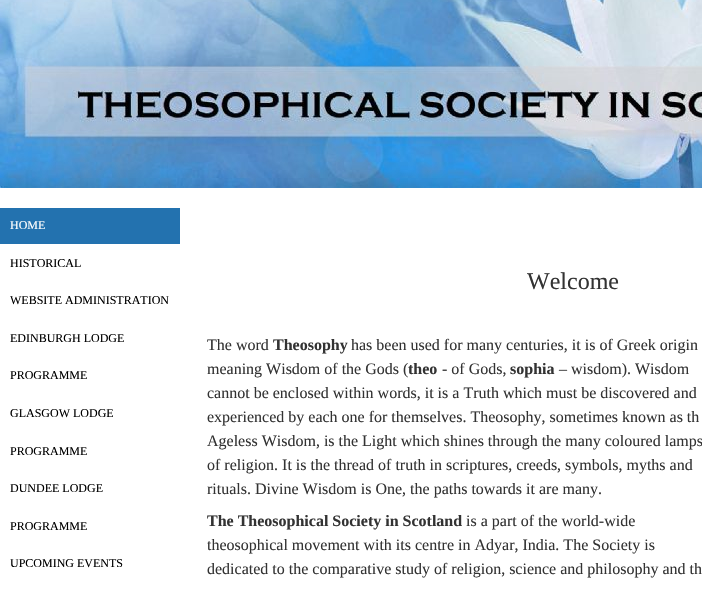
void draw(SkCanvas* c) {
SkPaint p;
p.setAntiAlias(true);
auto F=[&](const char* family, int weight, float size, bool italic = false){SkFontStyle style(weight, SkFontStyle::kNormal_Width,italic ? SkFontStyle::kItalic_Slant : SkFontStyle::kUpright_Slant);SkFont result(fontMgr->matchFamilyStyle(family, style), size);result.setSubpixel(true);return result;};
auto T=[&](const char* s, float x, float y, const SkFont& font){c->drawString(s, x, y, font, p);};
auto R=[&](float x, float y, float w, float h){c->drawRect(SkRect::MakeXYWH(x, y, w, h), p);};
auto I=[&](const char* path, float x, float y, float w, float h){auto image = SkImages::DeferredFromEncodedData(SkData::MakeFromFileName(path));c->drawImageRect(image, SkRect::MakeXYWH(x, y, w, h), SkSamplingOptions());};
c->clear(0xffffffff);
I("1.png",0,0,702,188);
p.setColor(0xff2372af);
R(0,208,180,36);
auto f1 = F("Liberation Serif",400,12);
p.setColor(0xffffffff);
T("HOME",10,229,f1);
p.setColor(0xff000000);
T("HISTORICAL",10,267,f1);
T("WEBSITE ADMINISTRATION",10,304,f1);
T("EDINBURGH LODGE",10,342,f1);
T("PROGRAMME",10,379,f1);
T("GLASGOW LODGE",10,417,f1);
T("PROGRAMME",10,455,f1);
T("DUNDEE LODGE",10,492,f1);
T("PROGRAMME",10,530,f1);
T("UPCOMING EVENTS",10,567,f1);
auto f2 = F("Liberation Serif",400,24);
p.setColor(0xff333333);
T("Welcome",527,289,f2);
auto f3 = F("Liberation Serif",400,16);
T("The word",207,350,f3);
auto f4 = F("Liberation Serif",700,16);
T("Theosophy",273,350,f4);
T("has been used for many centuries, it is of Greek origin",351,350,f3);
T("meaning Wisdom of the Gods (",207,374,f3);
T("theo",408,374,f4);
T("- of Gods,",442,374,f3);
T("sophia",510,374,f4);
T("– wisdom). Wisdom",559,374,f3);
T("cannot be enclosed within words, it is a Truth which must be discovered and",207,398,f3);
T("experienced by each one for themselves. Theosophy, sometimes known as th",207,422,f3);
T("Ageless Wisdom, is the Light which shines through the many coloured lamps",207,446,f3);
T("of religion. It is the thread of truth in scriptures, creeds, symbols, myths and",207,470,f3);
T("rituals. Divine Wisdom is One, the paths towards it are many.",207,494,f3);
T("The Theosophical Society in Scotland",207,526,f4);
T("is a part of the world-wide",466,526,f3);
T("theosophical movement with its centre in Adyar, India. The Society is",207,550,f3);
T("dedicated to the comparative study of religion, science and philosophy and th",207,574,f3);
}
